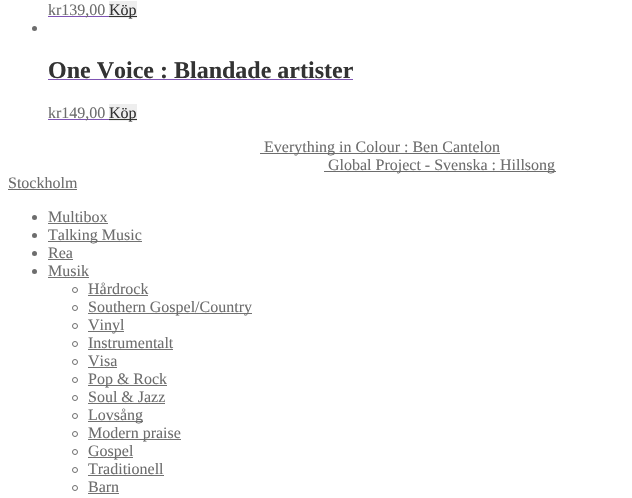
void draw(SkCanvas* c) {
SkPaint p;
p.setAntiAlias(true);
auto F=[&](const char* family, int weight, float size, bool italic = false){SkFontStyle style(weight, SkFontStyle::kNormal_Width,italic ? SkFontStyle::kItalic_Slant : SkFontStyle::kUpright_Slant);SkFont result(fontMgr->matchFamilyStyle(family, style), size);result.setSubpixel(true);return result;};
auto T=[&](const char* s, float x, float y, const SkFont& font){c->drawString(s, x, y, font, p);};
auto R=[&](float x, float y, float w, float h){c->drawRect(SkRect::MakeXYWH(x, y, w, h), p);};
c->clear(0xffffffff);
p.setColor(0xff7f54b3);
R(48,16,61,1);
auto f1 = F("Liberation Serif",400,16);
p.setColor(0xff6d6d6d);
T("kr139,00",48,15,f1);
p.setColor(0xffeeeeee);
R(109,1,28,17);
p.setColor(0xff333333);
R(109,16,28,1);
T("Köp",109,15,f1);
p.setColor(0xff6d6d6d);
c->drawCircle(34.5,28.5,2.5,p);
auto f2 = F("Liberation Serif",700,24);
p.setColor(0xff333333);
T("One Voice : Blandade artister",48,78,f2);
p.setColor(0xff7f54b3);
R(48,79,305,1);
R(48,119,61,1);
p.setColor(0xff6d6d6d);
T("kr149,00",48,118,f1);
p.setColor(0xffeeeeee);
R(109,104,28,17);
p.setColor(0xff333333);
R(109,119,28,1);
T("Köp",109,118,f1);
p.setColor(0xff6d6d6d);
R(260,153,240,1);
T("Everything in Colour : Ben Cantelon",264,152,f1);
R(324,171,232,1);
T("Global Project - Svenska : Hillsong",328,170,f1);
T("Stockholm",8,188,f1);
R(8,189,69,1);
c->drawCircle(34.5,217.5,2.5,p);
T("Multibox",48,222,f1);
p.setColor(0xff727272);
R(48,223,60,1);
p.setColor(0xff6d6d6d);
c->drawCircle(34.5,235.5,2.5,p);
p.setColor(0xff727272);
R(48,241,94,1);
p.setColor(0xff6d6d6d);
T("Talking Music",48,240,f1);
c->drawCircle(34.5,253.5,2.5,p);
T("Rea",48,258,f1);
p.setColor(0xff727272);
R(48,259,25,1);
p.setColor(0xff6d6d6d);
c->drawCircle(34.5,271.5,2.5,p);
T("Musik",48,276,f1);
p.setColor(0xff727272);
R(48,277,41,1);
p.setStroke(true);
p.setStrokeWidth(1);
p.setColor(0xff6d6d6d);
c->drawCircle(75,290,2.5,p);
p.setStroke(false);
T("Hårdrock",88,294,f1);
p.setColor(0xff727272);
R(88,295,60,1);
p.setStroke(true);
p.setColor(0xff6d6d6d);
c->drawCircle(75,308,2.5,p);
p.setStroke(false);
p.setColor(0xff727272);
R(88,313,164,1);
p.setColor(0xff6d6d6d);
T("Southern Gospel/Country",88,312,f1);
p.setStroke(true);
c->drawCircle(75,326,2.5,p);
p.setStroke(false);
p.setColor(0xff727272);
R(88,331,36,1);
p.setColor(0xff6d6d6d);
T("Vinyl",88,330,f1);
p.setStroke(true);
c->drawCircle(75,344,2.5,p);
p.setStroke(false);
T("Instrumentalt",88,348,f1);
p.setColor(0xff727272);
R(88,349,85,1);
p.setStroke(true);
p.setColor(0xff6d6d6d);
c->drawCircle(75,362,2.5,p);
p.setStroke(false);
T("Visa",88,366,f1);
p.setColor(0xff727272);
R(88,367,29,1);
p.setStroke(true);
p.setColor(0xff6d6d6d);
c->drawCircle(75,380,2.5,p);
p.setStroke(false);
p.setColor(0xff727272);
R(88,385,79,1);
p.setColor(0xff6d6d6d);
T("Pop & Rock",88,384,f1);
p.setStroke(true);
c->drawCircle(75,398,2.5,p);
p.setStroke(false);
T("Soul & Jazz",88,402,f1);
p.setColor(0xff727272);
R(88,403,77,1);
p.setStroke(true);
p.setColor(0xff6d6d6d);
c->drawCircle(75,416,2.5,p);
p.setStroke(false);
p.setColor(0xff727272);
R(88,421,55,1);
p.setColor(0xff6d6d6d);
T("Lovsång",88,420,f1);
p.setStroke(true);
c->drawCircle(75,434,2.5,p);
p.setStroke(false);
p.setColor(0xff727272);
R(88,439,93,1);
p.setColor(0xff6d6d6d);
T("Modern praise",88,438,f1);
p.setStroke(true);
c->drawCircle(75,452,2.5,p);
p.setStroke(false);
p.setColor(0xff727272);
R(88,457,45,1);
p.setColor(0xff6d6d6d);
T("Gospel",88,456,f1);
p.setStroke(true);
c->drawCircle(75,470,2.5,p);
p.setStroke(false);
T("Traditionell",88,474,f1);
p.setColor(0xff727272);
R(88,475,76,1);
p.setStroke(true);
p.setColor(0xff6d6d6d);
c->drawCircle(75,488,2.5,p);
p.setStroke(false);
T("Barn",88,492,f1);
p.setColor(0xff727272);
R(88,493,31,1);
}
